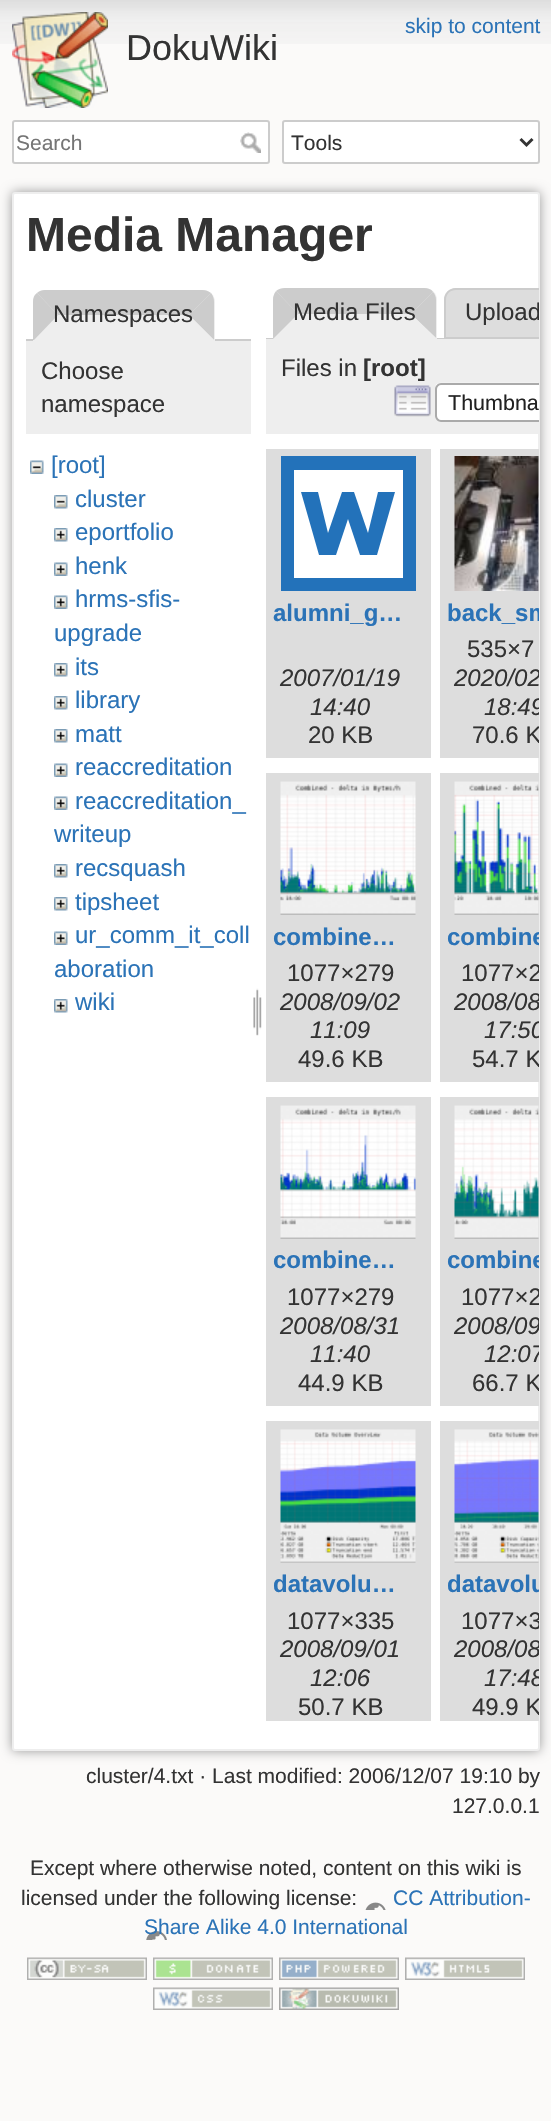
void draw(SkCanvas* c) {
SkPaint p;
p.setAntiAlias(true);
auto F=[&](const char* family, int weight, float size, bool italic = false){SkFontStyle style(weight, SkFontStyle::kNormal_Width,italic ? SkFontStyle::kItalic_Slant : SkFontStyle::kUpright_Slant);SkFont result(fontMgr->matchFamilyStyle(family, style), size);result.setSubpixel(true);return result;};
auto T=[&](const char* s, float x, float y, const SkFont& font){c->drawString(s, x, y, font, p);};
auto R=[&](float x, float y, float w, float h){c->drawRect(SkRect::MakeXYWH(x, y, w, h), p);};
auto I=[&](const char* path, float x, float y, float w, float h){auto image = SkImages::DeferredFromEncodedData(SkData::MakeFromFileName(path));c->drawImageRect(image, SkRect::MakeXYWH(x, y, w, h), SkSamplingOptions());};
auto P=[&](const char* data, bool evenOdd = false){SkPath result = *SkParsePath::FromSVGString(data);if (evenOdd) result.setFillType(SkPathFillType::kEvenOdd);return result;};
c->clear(0xfffbfaf9);
I("1.png",0,0,551,44);
auto f1 = F("Liberation Sans",400,21);
p.setColor(0xff2b73b7);
T("skip to content",405,33,f1);
I("2.png",12,12,96,96);
auto f2 = F("Liberation Sans",400,36);
p.setColor(0xff333333);
T("DokuWiki",126,60,f2);
p.setColor(0xffffffff);
c->drawRoundRect(SkRect::MakeXYWH(13,121,256,42),2,2,p);
p.setStroke(true);
p.setStrokeWidth(2);
p.setColor(0xffcccccc);
c->drawRoundRect(SkRect::MakeXYWH(13,121,256,42),2,2,p);
p.setStroke(false);
p.setColor(0xff757575);
T("Search",16,150,f1);
I("3.png",240,132,21,21);
p.setColor(0xffffffff);
c->drawRoundRect(SkRect::MakeXYWH(283,121,256,42),2,2,p);
p.setStroke(true);
p.setColor(0xffcccccc);
c->drawRoundRect(SkRect::MakeXYWH(283,121,256,42),2,2,p);
p.setStrokeWidth(3);
p.setColor(0xff333333);
c->drawPath(P("M520.5 139l6 6l6-6"),p);
p.setStroke(false);
T("Tools",291,150,f1);
p.setColor(0xff999999);
p.setMaskFilter(SkMaskFilter::MakeBlur(kNormal_SkBlurStyle, 6));
c->drawRoundRect(SkRect::MakeXYWH(12,192,528,1559),3,3,p);
p.setMaskFilter(nullptr);
p.setColor(0xffffffff);
c->drawRoundRect(SkRect::MakeXYWH(13,193,526,1557),2,2,p);
p.setStroke(true);
p.setStrokeWidth(2);
p.setColor(0xffeeeeee);
c->drawRoundRect(SkRect::MakeXYWH(13,193,526,1557),2,2,p);
auto f3 = F("Liberation Sans",700,48);
p.setStroke(false);
p.setColor(0xff333333);
T("Media Manager",26,251,f3);
p.setColor(0xffcccccc);
R(26,339,225,2);
p.setColor(0xffeeeeee);
c->drawPath(P("M45 290h158c6.5 0 12 5.5 12 12v39h-182v-39c0-6.5 5.5-12 12-12z"),p);
p.setColor(0xffcccccc);
c->drawPath(P("M45 290c-3 0-6 1-8 3l21 22h131l22-22c-3-2-5-3-9-3z"),p);
c->drawPath(P("M214 340v-38c0-4-1-6-3-9l-22 22z"),p);
p.setColor(0xffeeeeee);
c->drawPath(P("M214 340l-25-25h-131l-24 25z"),p);
p.setColor(0xffcccccc);
c->drawPath(P("M33 302c0-4 1-7 4-9l21 22l-24 25h-1z"),p);
auto f4 = F("Liberation Sans",400,24);
p.setColor(0xff333333);
T("Namespaces",53,322,f4);
p.setColor(0xffeeeeee);
R(26,341,225,93);
p.setColor(0xff333333);
T("Choose",41,379,f4);
T("namespace",41,412,f4);
I("4.png",30,460,14,14);
p.setColor(0xff2b73b7);
T("[root]",51,473,f4);
I("5.png",54,495,14,14);
T("cluster",75,507,f4);
I("6.png",54,528,14,14);
T("eportfolio",75,540,f4);
I("7.png",54,562,14,14);
T("henk",75,574,f4);
I("7.png",54,595,14,14);
T("hrms-sfis-",75,607,f4);
T("upgrade",54,641,f4);
I("6.png",54,663,14,14);
T("its",75,675,f4);
I("6.png",54,696,14,14);
T("library",75,708,f4);
I("6.png",54,729,14,14);
T("matt",75,742,f4);
I("7.png",54,763,14,14);
T("reaccreditation",75,775,f4);
I("7.png",54,796,14,14);
T("reaccreditation_",75,809,f4);
T("writeup",54,842,f4);
I("6.png",54,864,14,14);
T("recsquash",75,876,f4);
I("6.png",54,897,14,14);
T("tipsheet",75,910,f4);
I("7.png",54,931,14,14);
T("ur_comm_it_coll",75,943,f4);
T("aboration",54,977,f4);
I("6.png",54,999,14,14);
T("wiki",75,1010,f4);
I("8.png",253,988,9,48);
p.setColor(0xffcccccc);
R(266,338,178,1);
p.setColor(0xffeeeeee);
c->drawPath(P("M285 288h140c6.5 0 12 5.5 12 12v39h-164v-39c0-6.5 5.5-12 12-12z"),p);
p.setColor(0xffcccccc);
c->drawPath(P("M285 288h139c4 0 7 1 9 4l-22 22h-113l-22-23c2-2 6-3 9-3z"),p);
c->drawPath(P("M433 292l-22 22l25 24v-38c0-3-1-6-3-8z"),p);
p.setColor(0xffeeeeee);
c->drawPath(P("M436 338l-25-24h-113l-25 25h163z"),p);
p.setColor(0xffcccccc);
c->drawPath(P("M273 339v-39c0-4 1-6 3-9l22 23z"),p);
p.setColor(0xff333333);
T("Media Files",293,320,f4);
p.setColor(0xffdddddd);
c->drawPath(P("M456 288h83v51h-95v-39c0-6.5 5.5-12 12-12z"),p);
p.setColor(0xffcccccc);
c->drawPath(P("M456 288c-7 0-12 5-12 12v39h95v-2h-93v-37c0-6 4-10 10-10h83v-2z"),p);
c->save();
c->clipPath(P("M15.5 194h522c1 0 1.5 .5 1.5 1.5v1552c0 1-.5 1.5-1.5 1.5h-522c-1 0-1.5-.5-1.5-1.5v-1552c0-1 .5-1.5 1.5-1.5z"),true);
p.setColor(0xff333333);
T("Upload",465,320,f4);
c->restore();
p.setColor(0xffeeeeee);
R(266,339,272,95);
p.setColor(0xff333333);
T("Files in",281,376,f4);
auto f5 = F("Liberation Sans",700,24);
T("[root]",363,376,f5);
I("9.png",394,385,37,32);
p.setColor(0xffffffff);
c->drawPath(P("M441 383h98v39h-98c-3.5 0-6-2.5-6-6v-27c0-3.5 2.5-6 6-6z"),p);
I("10.png",435,382,103,5);
p.setColor(0xffaaaaaa);
c->drawPath(P("M441 383c-3 0-6 3-6 6v27c0 3 3 6 6 6h98v-2h-98c-2 0-4-2-4-4v-27c0-2 2-4 4-4h98v-2z"),p);
auto f6 = F("Liberation Sans",400,21.5);
p.setColor(0xff212121);
T("Thumbna",448,410,f6);
p.setColor(0xffdddddd);
R(266,449,165,309);
p.setColor(0xffffffff);
R(294,470,109,108);
c->save();
c->clipRect(SkRect::MakeXYWH(281,456,135,135));
p.setColor(0xff2372ba);
c->drawPath(P("M416 591h-136v-135h136zm-122-13h109v-108h-109"),p);
c->restore();
c->drawPath(P("M318 492l10 41l14-41h12l14 41l10-41h17l-18 63h-17l-12-36l-12 36h-17l-18-63z"),p);
p.setColor(0xff2b73b7);
T("alumni_g…",273,621,f5);
auto f7 = F("Liberation Sans",400,24,true);
p.setColor(0xff333333);
T("2007/01/19",280,686,f7);
T("14:40",310,715,f7);
T("20 KB",308,743,f4);
p.setColor(0xffdddddd);
R(440,449,99,309);
I("11.png",454,456,85,135);
c->save();
c->clipPath(P("M15.5 194h522c1 0 1.5 .5 1.5 1.5v1552c0 1-.5 1.5-1.5 1.5h-522c-1 0-1.5-.5-1.5-1.5v-1552c0-1 .5-1.5 1.5-1.5z"),true);
p.setColor(0xff2b73b7);
T("back_sm",447,621,f5);
c->restore();
p.setColor(0xff333333);
T("535×7",467,657,f4);
c->save();
c->clipPath(P("M15.5 194h522c1 0 1.5 .5 1.5 1.5v1552c0 1-.5 1.5-1.5 1.5h-522c-1 0-1.5-.5-1.5-1.5v-1552c0-1 .5-1.5 1.5-1.5z"),true);
T("2020/02",454,686,f7);
T("18:49",484,715,f7);
T("70.6 K",472,743,f4);
c->restore();
p.setColor(0xffdddddd);
R(266,773,165,309);
I("12.png",280,781,136,134);
p.setColor(0xff2b73b7);
T("combine…",273,945,f5);
p.setColor(0xff333333);
T("1077×279",287,981,f4);
T("2008/09/02",280,1010,f7);
T("11:09",310,1038,f7);
T("49.6 KB",298,1067,f4);
p.setColor(0xffdddddd);
R(440,773,99,309);
I("13.png",454,781,85,134);
c->save();
c->clipPath(P("M15.5 194h522c1 0 1.5 .5 1.5 1.5v1552c0 1-.5 1.5-1.5 1.5h-522c-1 0-1.5-.5-1.5-1.5v-1552c0-1 .5-1.5 1.5-1.5z"),true);
p.setColor(0xff2b73b7);
T("combine",447,945,f5);
p.setColor(0xff333333);
T("1077×2",461,981,f4);
T("2008/08",454,1010,f7);
T("17:50",484,1038,f7);
T("54.7 K",472,1067,f4);
c->restore();
p.setColor(0xffdddddd);
R(266,1097,165,309);
I("14.png",280,1105,136,134);
p.setColor(0xff2b73b7);
T("combine…",273,1268,f5);
p.setColor(0xff333333);
T("1077×279",287,1305,f4);
T("2008/08/31",280,1334,f7);
T("11:40",310,1362,f7);
T("44.9 KB",298,1391,f4);
p.setColor(0xffdddddd);
R(440,1097,99,309);
I("15.png",454,1105,85,134);
c->save();
c->clipPath(P("M15.5 194h522c1 0 1.5 .5 1.5 1.5v1552c0 1-.5 1.5-1.5 1.5h-522c-1 0-1.5-.5-1.5-1.5v-1552c0-1 .5-1.5 1.5-1.5z"),true);
p.setColor(0xff2b73b7);
T("combine",447,1268,f5);
p.setColor(0xff333333);
T("1077×2",461,1305,f4);
T("2008/09",454,1334,f7);
T("12:07",484,1362,f7);
T("66.7 K",472,1391,f4);
c->restore();
p.setColor(0xffdddddd);
R(266,1421,165,300);
I("16.png",280,1429,136,134);
p.setColor(0xff2b73b7);
T("datavolu…",273,1592,f5);
p.setColor(0xff333333);
T("1077×335",287,1629,f4);
T("2008/09/01",280,1657,f7);
T("12:06",310,1686,f7);
T("50.7 KB",298,1715,f4);
p.setColor(0xffdddddd);
R(440,1421,99,300);
I("17.png",454,1429,85,134);
c->save();
c->clipPath(P("M15.5 194h522c1 0 1.5 .5 1.5 1.5v1552c0 1-.5 1.5-1.5 1.5h-522c-1 0-1.5-.5-1.5-1.5v-1552c0-1 .5-1.5 1.5-1.5z"),true);
p.setColor(0xff2b73b7);
T("datavolu",447,1592,f5);
p.setColor(0xff333333);
T("1077×3",461,1629,f4);
T("2008/08",454,1657,f7);
T("17:48",484,1686,f7);
T("49.9 K",472,1715,f4);
c->restore();
T("cluster/4.txt · Last modified: 2006/12/07 19:10 by",86,1783,f1);
T("127.0.0.1",452,1813,f1);
T("Except where otherwise noted, content on this wiki is",30,1875,f1);
T("licensed under the following license:",21,1905,f1);
p.setColor(0xff2b73b7);
T("CC Attribution-",393,1905,f1);
I("18.png",146,1902,240,38);
T("Share Alike 4.0 International",144,1934,f1);
I("19.png",27,1957,120,23);
I("20.png",153,1957,120,23);
I("21.png",279,1957,120,23);
I("22.png",405,1957,120,23);
I("23.png",153,1987,120,23);
I("24.png",279,1987,120,23);
}
